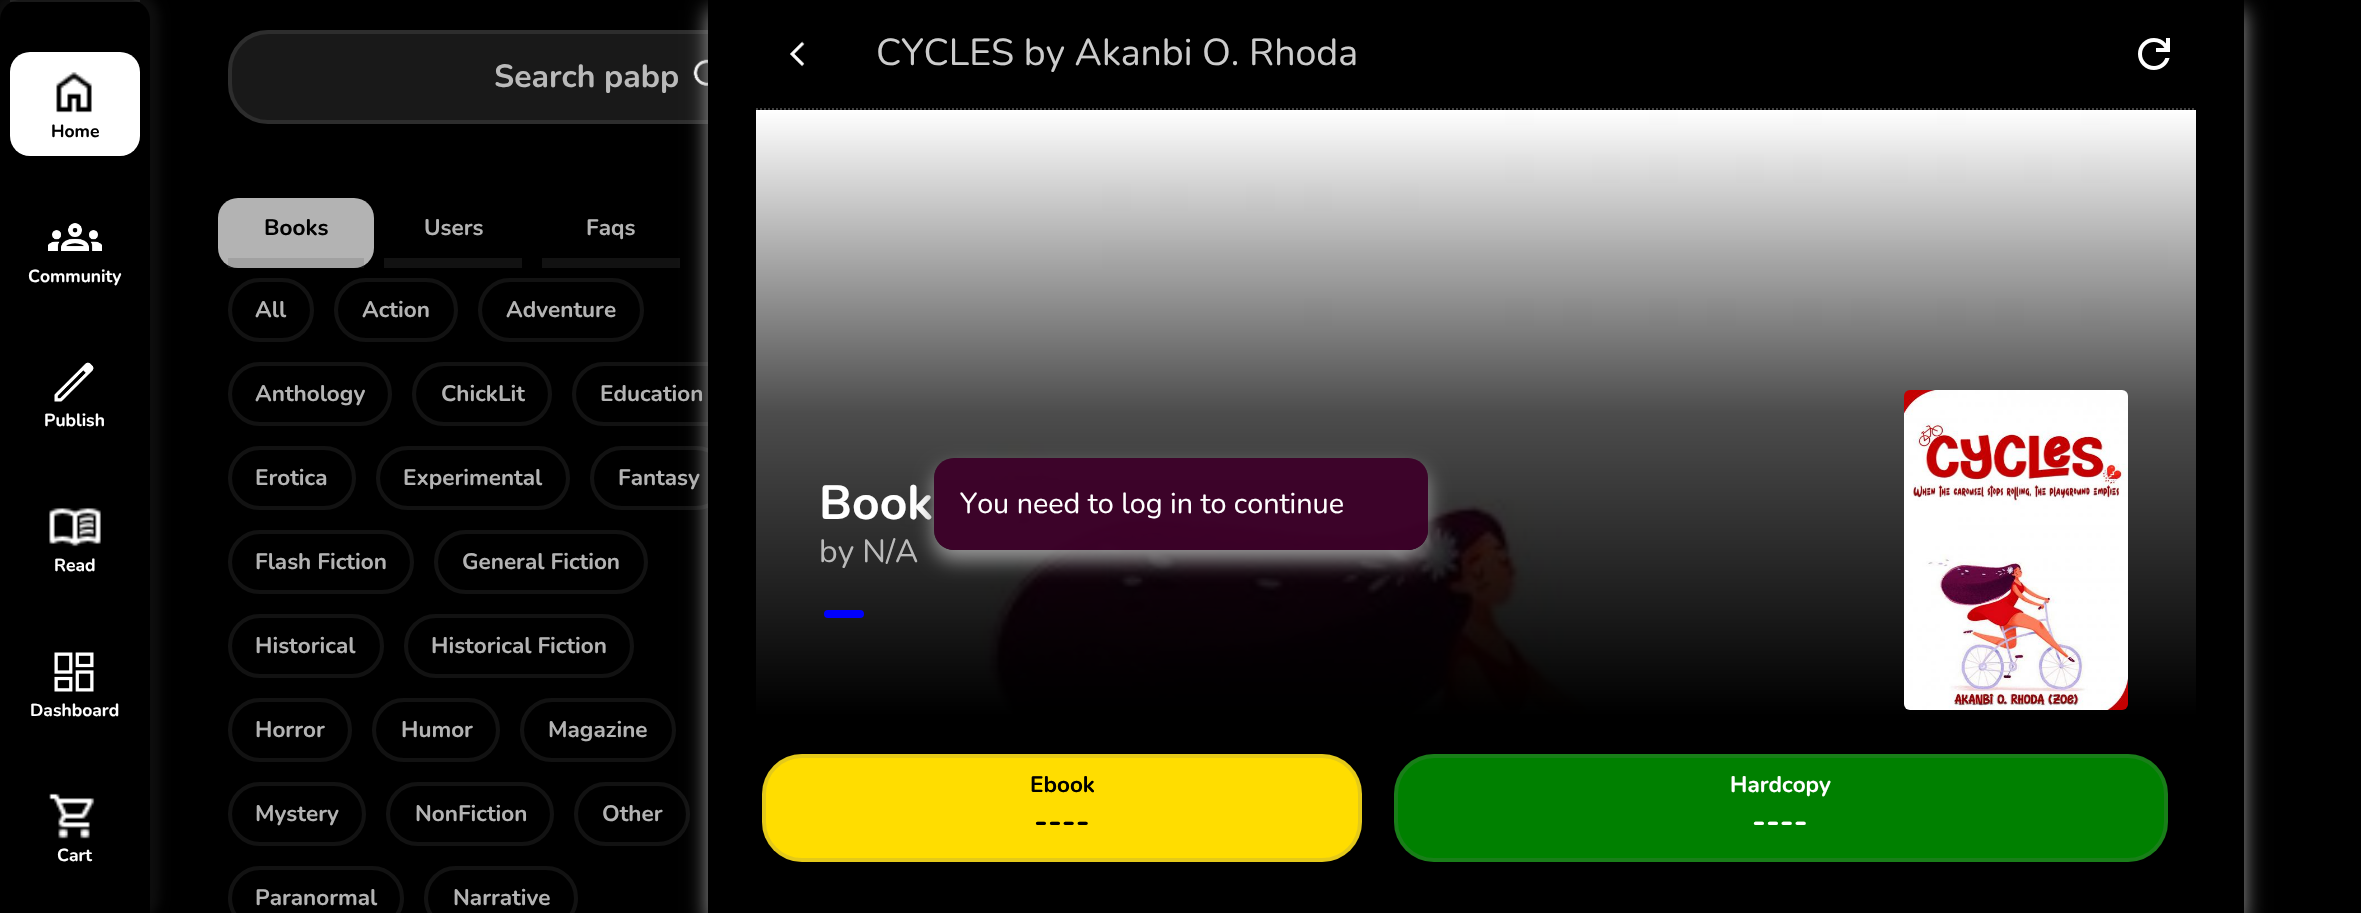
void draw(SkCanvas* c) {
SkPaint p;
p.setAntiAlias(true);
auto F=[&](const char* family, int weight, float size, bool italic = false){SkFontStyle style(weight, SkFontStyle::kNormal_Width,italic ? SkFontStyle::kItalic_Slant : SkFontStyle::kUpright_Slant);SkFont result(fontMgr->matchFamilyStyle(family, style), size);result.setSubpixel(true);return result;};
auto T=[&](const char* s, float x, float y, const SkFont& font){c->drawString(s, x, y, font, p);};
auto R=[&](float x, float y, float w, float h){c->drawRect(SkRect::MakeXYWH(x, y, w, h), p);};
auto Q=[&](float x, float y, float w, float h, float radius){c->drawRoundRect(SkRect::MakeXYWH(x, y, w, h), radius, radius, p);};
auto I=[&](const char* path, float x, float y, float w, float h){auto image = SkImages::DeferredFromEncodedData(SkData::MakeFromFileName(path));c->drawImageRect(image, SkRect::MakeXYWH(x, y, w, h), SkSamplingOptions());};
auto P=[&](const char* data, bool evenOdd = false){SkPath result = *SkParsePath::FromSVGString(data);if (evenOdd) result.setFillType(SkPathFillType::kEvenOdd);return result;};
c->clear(0xff000000);
p.setColor(0x80191919);
p.setMaskFilter(SkMaskFilter::MakeBlur(kNormal_SkBlurStyle, 5));
c->drawRoundRect(SkRect::MakeXYWH(-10,-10,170,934),30,30,p);
p.setMaskFilter(nullptr);
p.setColor(0xff000000);
c->drawPath(P("M20 0h110c11 0 20 9 20 20v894h-150v-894c0-11 9-20 20-20z"),p);
p.setColor(0x337f7f7f);
R(10,0,130,2);
p.setColor(0xffffffff);
Q(10,52,130,104,20);
I("1.png",56,72,36,41);
auto f1 = F("Nunito",700,17.5);
p.setColor(0xff000000);
T("Home",51,137,f1);
I("2.png",48,223,54,28);
p.setColor(0xffffffff);
T("Community",28,282,f1);
I("3.png",54,362,40,40);
T("Publish",44,426,f1);
I("4.png",49,508,52,39);
T("Read",54,571,f1);
I("5.png",54,652,40,40);
T("Dashboard",30,716,f1);
I("6.png",49,793,46,46);
T("Cart",57,861,f1);
p.setColor(0xff191919);
Q(228,30,542,94,40);
p.setStroke(true);
p.setStrokeWidth(4);
p.setColor(0x337e7e7e);
c->drawRoundRect(SkRect::MakeXYWH(230,32,538,90),38,38,p);
auto f2 = F("Nunito",700,32);
p.setStroke(false);
p.setColor(0xffbababa);
T("Search pabp",494,87,f2);
I("7.png",693,59,15,27);
p.setColor(0xffb3b3b3);
Q(218,198,156,70,20);
p.setColor(0x335a5a5a);
R(228,258,136,10);
auto f3 = F("Nunito",700,22.5);
p.setColor(0xff000000);
T("Books",264,235,f3);
p.setColor(0xff121212);
R(384,258,138,10);
p.setColor(0xffb3b3b3);
T("Users",424,235,f3);
p.setColor(0xff121212);
R(542,258,138,10);
p.setColor(0xffb3b3b3);
T("Faqs",586,235,f3);
p.setStroke(true);
p.setColor(0xff121212);
c->drawRoundRect(SkRect::MakeXYWH(230,280,82,60),30,30,p);
p.setStroke(false);
p.setColor(0xffb3b3b3);
T("All",255,317,f3);
p.setStroke(true);
p.setColor(0xff121212);
c->drawRoundRect(SkRect::MakeXYWH(336,280,120,60),30,30,p);
p.setStroke(false);
p.setColor(0xffb3b3b3);
T("Action",362,317,f3);
p.setStroke(true);
p.setColor(0xff121212);
c->drawRoundRect(SkRect::MakeXYWH(480,280,162,60),30,30,p);
p.setStroke(false);
p.setColor(0xffb3b3b3);
T("Adventure",506,317,f3);
p.setStroke(true);
p.setColor(0xff121212);
c->drawRoundRect(SkRect::MakeXYWH(230,364,160,60),30,30,p);
p.setStroke(false);
p.setColor(0xffb3b3b3);
T("Anthology",255,401,f3);
p.setStroke(true);
p.setColor(0xff121212);
c->drawRoundRect(SkRect::MakeXYWH(414,364,136,60),30,30,p);
p.setStroke(false);
p.setColor(0xffb3b3b3);
T("ChickLit",441,401,f3);
p.setStroke(true);
p.setColor(0xff121212);
c->drawRoundRect(SkRect::MakeXYWH(574,364,174,60),30,30,p);
p.setStroke(false);
p.setColor(0xffb3b3b3);
T("Education",600,401,f3);
p.setStroke(true);
p.setColor(0xff121212);
c->drawRoundRect(SkRect::MakeXYWH(230,448,124,60),30,30,p);
p.setStroke(false);
p.setColor(0xffb3b3b3);
T("Erotica",255,485,f3);
p.setStroke(true);
p.setColor(0xff121212);
c->drawRoundRect(SkRect::MakeXYWH(378,448,190,60),30,30,p);
p.setStroke(false);
p.setColor(0xffb3b3b3);
T("Experimental",403,485,f3);
p.setStroke(true);
p.setColor(0xff121212);
c->drawRoundRect(SkRect::MakeXYWH(592,448,134,60),30,30,p);
p.setStroke(false);
p.setColor(0xffb3b3b3);
T("Fantasy",618,485,f3);
p.setStroke(true);
p.setColor(0xff121212);
c->drawRoundRect(SkRect::MakeXYWH(230,532,182,60),30,30,p);
p.setStroke(false);
p.setColor(0xffb3b3b3);
T("Flash Fiction",255,569,f3);
p.setStroke(true);
p.setColor(0xff121212);
c->drawRoundRect(SkRect::MakeXYWH(436,532,210,60),30,30,p);
p.setStroke(false);
p.setColor(0xffb3b3b3);
T("General Fiction",462,569,f3);
p.setStroke(true);
p.setColor(0xff121212);
c->drawRoundRect(SkRect::MakeXYWH(230,616,152,60),30,30,p);
p.setStroke(false);
p.setColor(0xffb3b3b3);
T("Historical",255,653,f3);
p.setStroke(true);
p.setColor(0xff121212);
c->drawRoundRect(SkRect::MakeXYWH(406,616,226,60),30,30,p);
p.setStroke(false);
p.setColor(0xffb3b3b3);
T("Historical Fiction",431,653,f3);
p.setStroke(true);
p.setColor(0xff121212);
c->drawRoundRect(SkRect::MakeXYWH(230,700,120,60),30,30,p);
p.setStroke(false);
p.setColor(0xffb3b3b3);
T("Horror",255,737,f3);
p.setStroke(true);
p.setColor(0xff121212);
c->drawRoundRect(SkRect::MakeXYWH(374,700,124,60),30,30,p);
p.setStroke(false);
p.setColor(0xffb3b3b3);
T("Humor",401,737,f3);
p.setStroke(true);
p.setColor(0xff121212);
c->drawRoundRect(SkRect::MakeXYWH(522,700,152,60),30,30,p);
p.setStroke(false);
p.setColor(0xffb3b3b3);
T("Magazine",548,737,f3);
p.setStroke(true);
p.setColor(0xff121212);
c->drawRoundRect(SkRect::MakeXYWH(230,784,134,60),30,30,p);
p.setStroke(false);
p.setColor(0xffb3b3b3);
T("Mystery",255,821,f3);
p.setStroke(true);
p.setColor(0xff121212);
c->drawRoundRect(SkRect::MakeXYWH(388,784,164,60),30,30,p);
p.setStroke(false);
p.setColor(0xffb3b3b3);
T("NonFiction",415,821,f3);
p.setStroke(true);
p.setColor(0xff121212);
c->drawRoundRect(SkRect::MakeXYWH(576,784,112,60),30,30,p);
p.setStroke(false);
p.setColor(0xffb3b3b3);
T("Other",602,821,f3);
p.setStroke(true);
p.setColor(0xff121212);
c->drawRoundRect(SkRect::MakeXYWH(230,868,172,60),30,30,p);
p.setStroke(false);
p.setColor(0xffb3b3b3);
T("Paranormal",255,905,f3);
p.setStroke(true);
p.setColor(0xff121212);
c->drawRoundRect(SkRect::MakeXYWH(426,868,150,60),30,30,p);
p.setStroke(false);
p.setColor(0xffb3b3b3);
T("Narrative",453,905,f3);
p.setColor(0xff999999);
p.setMaskFilter(SkMaskFilter::MakeBlur(kNormal_SkBlurStyle, 10));
c->drawRect(SkRect::MakeXYWH(708,10,1536,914),p);
p.setMaskFilter(nullptr);
p.setColor(0xff000000);
R(708,0,1536,913);
p.setStroke(true);
p.setStrokeWidth(2);
p.setColor(0xff3f3f3f);
p.setPathEffect(SkDashPathEffect::Make({{2,2}}, 0));
c->drawPath(P("M756 109h1440"),p);
p.setPathEffect(nullptr);
I("8.png",790,41,15,26);
auto f4 = F("Nunito",400,37.5);
p.setStroke(false);
p.setColor(0xffcccccc);
T("CYCLES by Akanbi O. Rhoda",876,65,f4);
I("9.png",2138,38,32,32);
I("10.png",756,110,1440,606);
auto f5 = F("Nunito",700,48);
p.setColor(0xffffffff);
T("Book",819,519,f5);
auto f6 = F("Nunito",400,32);
p.setColor(0xffbababa);
T("by N/A",819,562,f6);
p.setColor(0xff0000ff);
Q(824,610,40,8,4);
I("11.png",1904,390,224,320);
p.setColor(0xffffdd00);
Q(762,754,600,108,40);
p.setStroke(true);
p.setStrokeWidth(4);
p.setColor(0x337e7e7e);
c->drawRoundRect(SkRect::MakeXYWH(764,756,596,104),38,38,p);
p.setStroke(false);
p.setColor(0xff000000);
T("Ebook",1030,792,f3);
T("----",1034,832,f2);
p.setColor(0xff008000);
Q(1394,754,774,108,40);
p.setStroke(true);
p.setColor(0x337e7e7e);
c->drawRoundRect(SkRect::MakeXYWH(1396,756,770,104),38,38,p);
p.setStroke(false);
p.setColor(0xffffffff);
T("Hardcopy",1730,792,f3);
T("----",1752,832,f2);
c->save();
c->clipPath(P("M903 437h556v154h-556zm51 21h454c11 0 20 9 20 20v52c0 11-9 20-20 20h-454c-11 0-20-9-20-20v-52c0-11 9-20 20-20z",true),true);
p.setColor(0xff999999);
p.setMaskFilter(SkMaskFilter::MakeBlur(kNormal_SkBlurStyle, 10));
c->drawRoundRect(SkRect::MakeXYWH(934,468,494,92),20,20,p);
p.setMaskFilter(nullptr);
c->restore();
p.setColor(0xf23c0028);
Q(934,458,494,92,20);
auto f7 = F("Nunito",400,28.75);
p.setColor(0xffffffff);
T("You need to log in to continue",960,513,f7);
}
